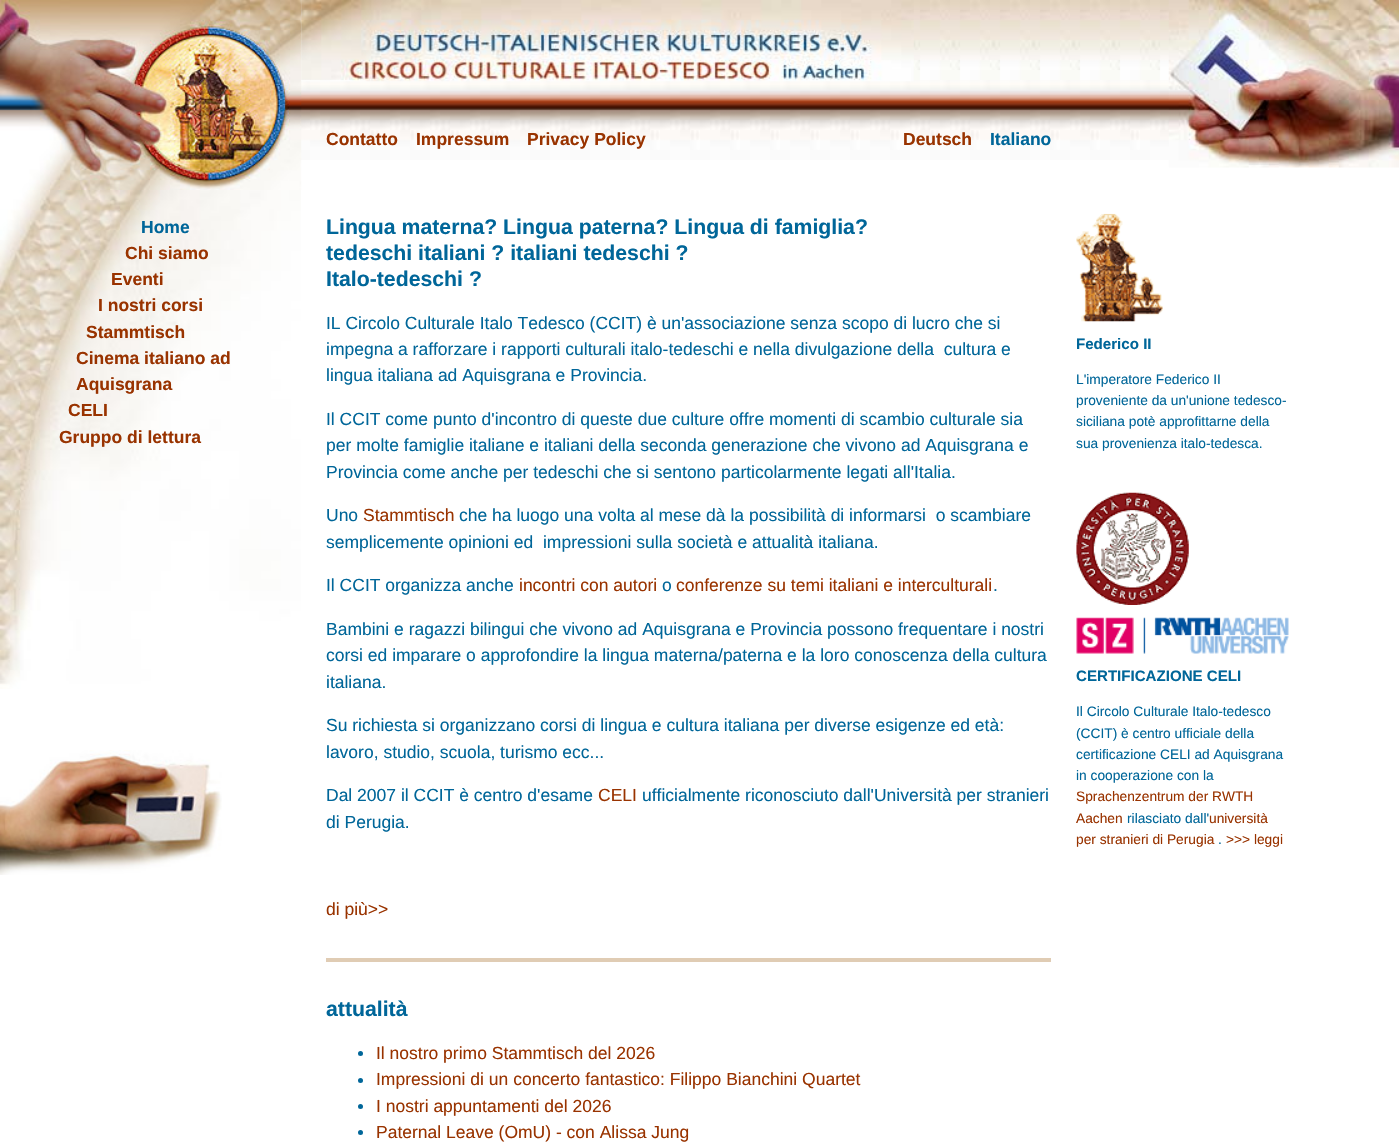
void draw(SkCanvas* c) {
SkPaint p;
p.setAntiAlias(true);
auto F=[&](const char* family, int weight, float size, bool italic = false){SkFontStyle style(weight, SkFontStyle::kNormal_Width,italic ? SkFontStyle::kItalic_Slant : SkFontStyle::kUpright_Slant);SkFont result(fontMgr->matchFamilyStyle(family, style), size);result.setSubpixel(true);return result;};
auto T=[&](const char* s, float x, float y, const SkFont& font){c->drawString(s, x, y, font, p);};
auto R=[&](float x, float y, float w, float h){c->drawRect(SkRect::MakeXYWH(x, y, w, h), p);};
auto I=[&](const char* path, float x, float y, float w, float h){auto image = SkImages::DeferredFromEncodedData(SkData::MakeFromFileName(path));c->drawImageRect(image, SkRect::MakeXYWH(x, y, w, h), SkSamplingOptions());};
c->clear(0xffffffff);
I("1.png",301,0,868,160);
I("2.png",0,0,302,190);
I("3.png",301,0,613,82);
I("4.png",1168,0,231,168);
auto f1 = F("Liberation Sans",700,17.5);
p.setColor(0xff993300);
T("Contatto",326,145,f1);
T("Impressum",416,145,f1);
T("Privacy Policy",527,145,f1);
T("Deutsch",903,145,f1);
p.setColor(0xff006699);
T("Italiano",990,145,f1);
I("5.png",0,190,301,499);
T("Home",141,233,f1);
p.setColor(0xff993300);
T("Chi siamo",125,259,f1);
T("Eventi",111,285,f1);
T("I nostri corsi",98,311,f1);
T("Stammtisch",86,338,f1);
T("Cinema italiano ad",76,364,f1);
T("Aquisgrana",76,390,f1);
T("CELI",68,416,f1);
T("Gruppo di lettura",59,443,f1);
I("6.png",0,750,222,125);
auto f2 = F("Liberation Sans",700,21.25);
p.setColor(0xff006699);
T("Lingua materna? Lingua paterna? Lingua di famiglia?",326,234,f2);
T("tedeschi italiani ? italiani tedeschi ?",326,260,f2);
T("Italo-tedeschi ?",326,286,f2);
auto f3 = F("Liberation Sans",400,17.5);
T("IL Circolo Culturale Italo Tedesco (CCIT) è un'associazione senza scopo di lucro che si",326,329,f3);
T("impegna a rafforzare i rapporti culturali italo-tedeschi e nella divulgazione della  cultura e",326,355,f3);
T("lingua italiana ad Aquisgrana e Provincia.",326,381,f3);
T("Il CCIT come punto d'incontro di queste due culture offre momenti di scambio culturale sia",326,425,f3);
T("per molte famiglie italiane e italiani della seconda generazione che vivono ad Aquisgrana e",326,451,f3);
T("Provincia come anche per tedeschi che si sentono particolarmente legati all'Italia.",326,478,f3);
T("Uno",326,521,f3);
p.setColor(0xff993300);
T("Stammtisch",363,521,f3);
p.setColor(0xff006699);
T("che ha luogo una volta al mese dà la possibilità di informarsi  o scambiare",459,521,f3);
T("semplicemente opinioni ed  impressioni sulla società e attualità italiana.",326,548,f3);
T("Il CCIT organizza anche",326,591,f3);
p.setColor(0xff993300);
T("incontri con autori",519,591,f3);
p.setColor(0xff006699);
T("o",662,591,f3);
p.setColor(0xff993300);
T("conferenze su temi italiani e interculturali",676,591,f3);
p.setColor(0xff006699);
T(".",993,591,f3);
T("Bambini e ragazzi bilingui che vivono ad Aquisgrana e Provincia possono frequentare i nostri",326,635,f3);
T("corsi ed imparare o approfondire la lingua materna/paterna e la loro conoscenza della cultura",326,661,f3);
T("italiana.",326,688,f3);
T("Su richiesta si organizzano corsi di lingua e cultura italiana per diverse esigenze ed età:",326,731,f3);
T("lavoro, studio, scuola, turismo ecc...",326,758,f3);
T("Dal 2007 il CCIT è centro d'esame",326,801,f3);
p.setColor(0xff993300);
T("CELI",598,801,f3);
p.setColor(0xff006699);
T("ufficialmente riconosciuto dall'Università per stranieri",642,801,f3);
T("di Perugia.",326,828,f3);
p.setColor(0xff993300);
T("di più>>",326,915,f3);
p.setColor(0xffe0ccb4);
R(326,958,725,4);
p.setColor(0xff006699);
T("attualità",326,1016,f2);
c->drawCircle(360.5,1053.5,2.5,p);
p.setColor(0xff993300);
T("Il nostro primo Stammtisch del 2026",376,1059,f3);
p.setColor(0xff006699);
c->drawCircle(360.5,1080.5,2.5,p);
p.setColor(0xff993300);
T("Impressioni di un concerto fantastico: Filippo Bianchini Quartet",376,1085,f3);
p.setColor(0xff006699);
c->drawCircle(360.5,1106.5,2.5,p);
p.setColor(0xff993300);
T("I nostri appuntamenti del 2026",376,1112,f3);
p.setColor(0xff006699);
c->drawCircle(360.5,1132.5,2.5,p);
p.setColor(0xff993300);
T("Paternal Leave (OmU) - con Alissa Jung",376,1138,f3);
I("7.png",1076,213,87,109);
auto f4 = F("Liberation Sans",700,15.1);
p.setColor(0xff006699);
T("Federico II",1076,349,f4);
auto f5 = F("Liberation Sans",400,13.75);
T("L'imperatore Federico II",1076,384,f5);
T("proveniente da un'unione tedesco-",1076,405,f5);
T("siciliana potè approfittarne della",1076,426,f5);
T("sua provenienza italo-tedesca.",1076,448,f5);
I("8.png",1076,492,113,113);
I("9.png",1076,617,213,37);
T("CERTIFICAZIONE CELI",1076,681,f4);
T("Il Circolo Culturale Italo-tedesco",1076,716,f5);
T("(CCIT) è centro ufficiale della",1076,738,f5);
T("certificazione CELI ad Aquisgrana",1076,759,f5);
T("in cooperazione con la",1076,780,f5);
p.setColor(0xff993300);
T("Sprachenzentrum der RWTH",1076,801,f5);
T("Aachen",1076,823,f5);
p.setColor(0xff006699);
T("rilasciato dall'",1127,823,f5);
p.setColor(0xff993300);
T("università",1209,823,f5);
T("per stranieri di Perugia",1076,844,f5);
p.setColor(0xff006699);
T(".",1218,844,f5);
p.setColor(0xff993300);
T(">>> leggi",1226,844,f5);
}
